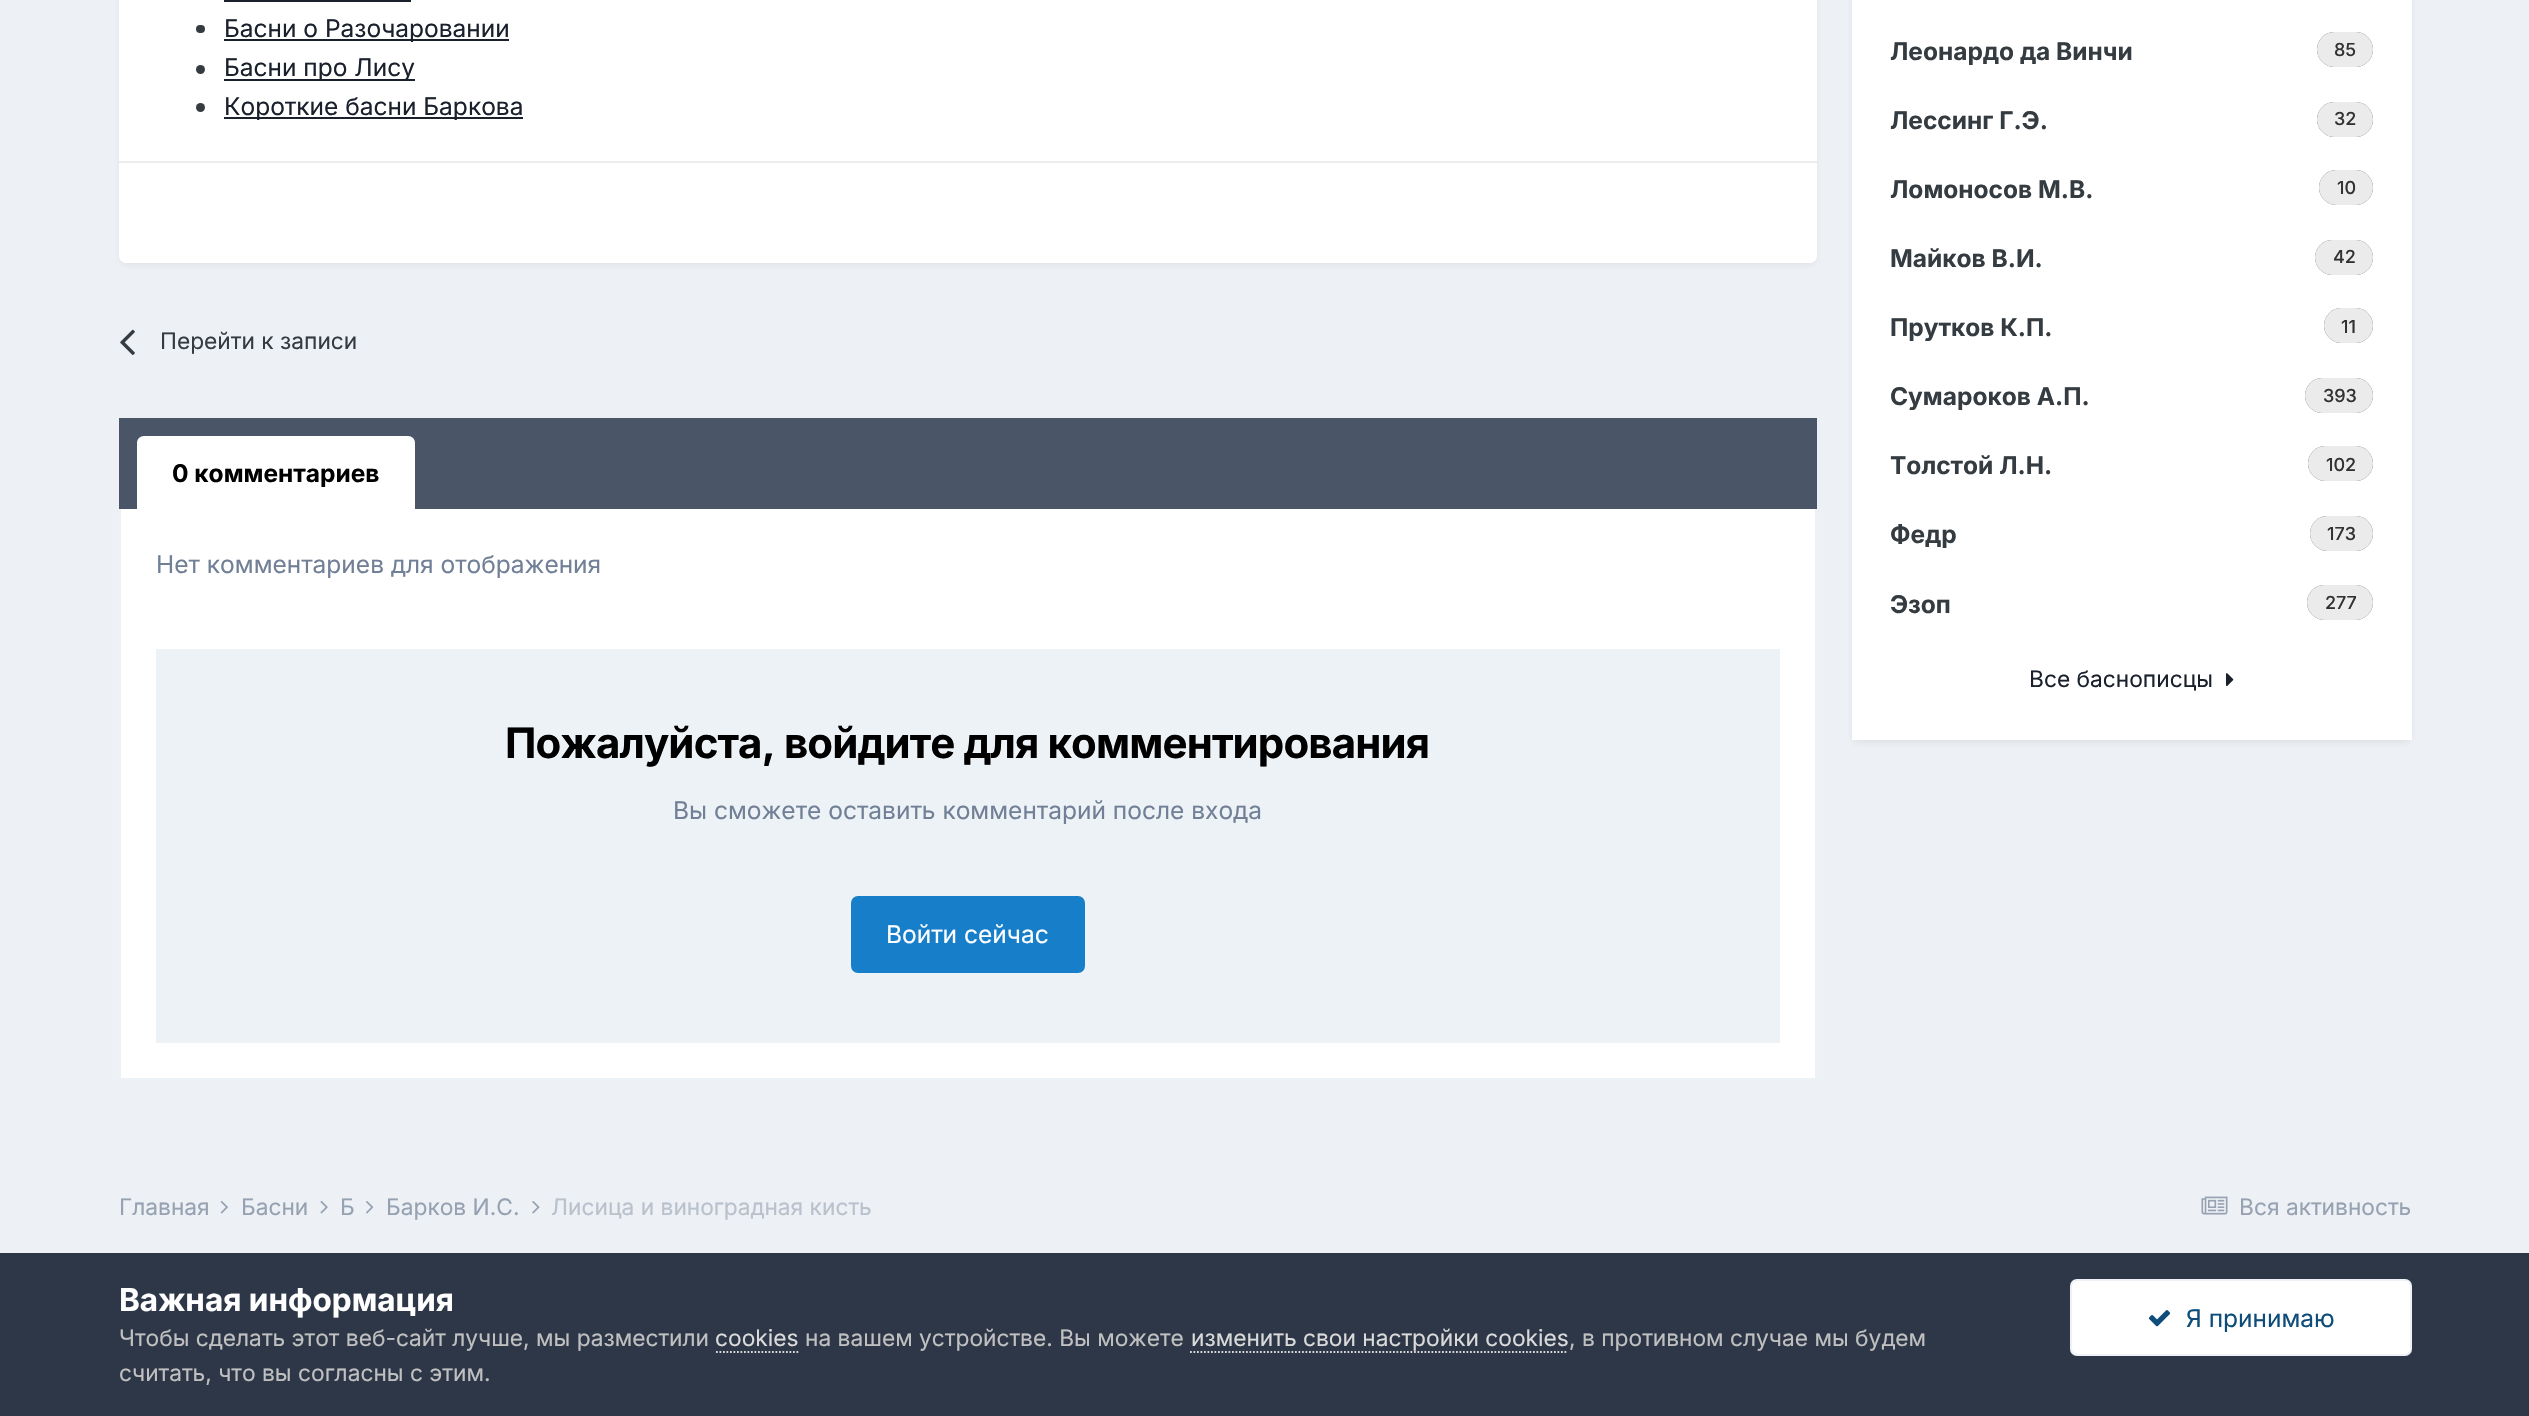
void draw(SkCanvas* c) {
SkPaint p;
p.setAntiAlias(true);
auto F=[&](const char* family, int weight, float size, bool italic = false){SkFontStyle style(weight, SkFontStyle::kNormal_Width,italic ? SkFontStyle::kItalic_Slant : SkFontStyle::kUpright_Slant);SkFont result(fontMgr->matchFamilyStyle(family, style), size);result.setSubpixel(true);return result;};
auto T=[&](const char* s, float x, float y, const SkFont& font){c->drawString(s, x, y, font, p);};
auto L=[&](const char* s, float x, float y, const SkFont& font, const SkPaint& ink, float letter, float word){std::vector<SkGlyphID> glyphs(font.countText(s, strlen(s), SkTextEncoding::kUTF8));std::vector<float> xs(glyphs.size());font.textToGlyphs(s, strlen(s), SkTextEncoding::kUTF8, glyphs);font.getXPos(glyphs, xs, x);float extra = 0;for (size_t i = 0; i < glyphs.size(); i++) {xs[i] += extra;extra += letter + word * (glyphs[i] == font.unicharToGlyph(' '));}c->drawTextBlob(SkTextBlob::MakeFromPosHGlyphs(glyphs, xs, y, font), 0, 0, ink);};
auto R=[&](float x, float y, float w, float h){c->drawRect(SkRect::MakeXYWH(x, y, w, h), p);};
auto Q=[&](float x, float y, float w, float h, float radius){c->drawRoundRect(SkRect::MakeXYWH(x, y, w, h), radius, radius, p);};
auto I=[&](const char* path, float x, float y, float w, float h){auto image = SkImages::DeferredFromEncodedData(SkData::MakeFromFileName(path));c->drawImageRect(image, SkRect::MakeXYWH(x, y, w, h), SkSamplingOptions());};
auto P=[&](const char* data, bool evenOdd = false){SkPath result = *SkParsePath::FromSVGString(data);if (evenOdd) result.setFillType(SkPathFillType::kEvenOdd);return result;};
c->clear(0xffedf0f4);
p.setColor(0x1a2d3748);
p.setMaskFilter(SkMaskFilter::MakeBlur(kNormal_SkBlurStyle, 3.5));
c->drawRoundRect(SkRect::MakeXYWH(121,-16,1694,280),5,5,p);
p.setMaskFilter(nullptr);
p.setColor(0xffffffff);
Q(119,-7,1698,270,7);
p.setColor(0xff1a202c);
R(224,0,187,2);
p.setColor(0xff353c41);
Q(196,25,9,8,4);
p.setColor(0xff1a202c);
R(224,39,285,2);
auto f1 = F("Inter",400,24.5);
T("Басни о Разочаровании",224,37,f1);
p.setColor(0xff353c41);
c->drawCircle(200.5,69.5,4.5,p);
p.setColor(0xff1a202c);
R(224,79,191,2);
T("Басни про Лису",224,76,f1);
p.setColor(0xff353c41);
c->drawCircle(200.5,107.5,4.5,p);
p.setColor(0xff1a202c);
R(224,117,299,2);
T("Короткие басни Баркова",224,115,f1);
p.setColor(0xffebecec);
R(119,161,1698,2);
I("1.png",120,329,15,26);
auto f2 = F("Inter",400,22.75);
p.setColor(0xff353c41);
T("Перейти к записи",160,349,f2);
p.setColor(0xff4a5568);
R(119,418,1698,91);
p.setColor(0xffffffff);
c->drawPath(P("M144 436h264c4 0 7 3 7 7v66h-278v-66c0-4 3-7 7-7z"),p);
auto f3 = F("Inter",700,24.5);
p.setColor(0xff000000);
T("0 комментариев",172,482,f3);
p.setColor(0xffffffff);
R(121,509,1694,569);
p.setColor(0xffedf2f7);
R(1815,509,2,571);
R(119,1078,1698,2);
R(119,509,2,571);
p.setColor(0xff718096);
T("Нет комментариев для отображения",156,573,f1);
p.setColor(0xffedf2f7);
R(156,649,1624,394);
auto f4 = F("Inter",700,42);
p.setColor(0xff000000);
L("Пожалуйста, войдите для комментирования",505,758,f4,p,-.85,0);
p.setColor(0xff718096);
T("Вы сможете оставить комментарий после входа",673,819,f1);
p.setColor(0xff177ec9);
Q(851,896,234,77,7);
p.setColor(0xffffffff);
T("Войти сейчас",886,943,f1);
p.setColor(0x1a2d3748);
p.setMaskFilter(SkMaskFilter::MakeBlur(kNormal_SkBlurStyle, 3.5));
c->drawRoundRect(SkRect::MakeXYWH(1853,-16,557,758),5,5,p);
p.setMaskFilter(nullptr);
p.setColor(0xffffffff);
R(1852,0,560,740);
p.setColor(0xff353c41);
T("Леонардо да Винчи",1890,60,f3);
p.setColor(0xff323232);
Q(2317,32,56,35,17.5);
p.setColor(0xe6ffffff);
Q(2317,32,56,35,17.5);
auto f5 = F("Inter",500,18);
p.setColor(0xff323232);
T("85",2334,56,f5);
p.setColor(0xff353c41);
T("Лессинг Г.Э.",1890,129,f3);
p.setColor(0xff323232);
Q(2317,102,56,35,17.5);
p.setColor(0xe6ffffff);
Q(2317,102,56,35,17.5);
p.setColor(0xff323232);
T("32",2334,125,f5);
p.setColor(0xff353c41);
T("Ломоносов М.В.",1890,198,f3);
p.setColor(0xff323232);
Q(2319,170,54,35,17.5);
p.setColor(0xe6ffffff);
Q(2319,170,54,35,17.5);
p.setColor(0xff323232);
T("10",2337,194,f5);
p.setColor(0xff353c41);
T("Майков В.И.",1890,267,f3);
p.setColor(0xff323232);
Q(2315,240,58,35,17.5);
p.setColor(0xe6ffffff);
Q(2315,240,58,35,17.5);
p.setColor(0xff323232);
T("42",2333,263,f5);
p.setColor(0xff353c41);
T("Прутков К.П.",1890,336,f3);
p.setColor(0xff323232);
Q(2324,308,49,35,17.5);
p.setColor(0xe6ffffff);
Q(2324,308,49,35,17.5);
p.setColor(0xff323232);
T("11",2341,333,f5);
p.setColor(0xff353c41);
T("Сумароков А.П.",1890,405,f3);
p.setColor(0xff323232);
Q(2305,378,68,35,17.5);
p.setColor(0xe6ffffff);
Q(2305,378,68,35,17.5);
p.setColor(0xff323232);
T("393",2323,402,f5);
p.setColor(0xff353c41);
T("Толстой Л.Н.",1890,474,f3);
p.setColor(0xff323232);
Q(2308,446,65,35,17.5);
p.setColor(0xe6ffffff);
Q(2308,446,65,35,17.5);
p.setColor(0xff323232);
T("102",2326,471,f5);
p.setColor(0xff353c41);
T("Федр",1890,543,f3);
p.setColor(0xff323232);
Q(2310,516,63,35,17.5);
p.setColor(0xe6ffffff);
Q(2310,516,63,35,17.5);
p.setColor(0xff323232);
T("173",2327,540,f5);
p.setColor(0xff353c41);
T("Эзоп",1890,613,f3);
p.setColor(0xff323232);
Q(2307,585,66,35,17.5);
p.setColor(0xe6ffffff);
Q(2307,585,66,35,17.5);
p.setColor(0xff323232);
T("277",2325,609,f5);
p.setColor(0xff1a202c);
T("Все баснописцы",2029,687,f2);
I("2.png",2226,673,8,14);
p.setColor(0xff96a2b2);
T("Главная",119,1215,f2);
I("3.png",220,1200,8,14);
T("Басни",241,1215,f2);
I("4.png",320,1200,8,14);
T("Б",340,1215,f2);
I("5.png",366,1201,8,13);
T("Барков И.С.",386,1215,f2);
I("6.png",532,1201,8,13);
p.setColor(0xffb9c1cd);
T("Лисица и виноградная кисть",551,1215,f2);
I("7.png",2201,1196,27,19);
p.setColor(0xff96a2b2);
T("Вся активность",2239,1215,f2);
p.setColor(0xff2d3748);
R(0,1253,2529,163);
auto f6 = F("Inter",700,31.5);
p.setColor(0xffffffff);
T("Важная информация",119,1311,f6);
p.setColor(0xffc0c0c0);
T("Чтобы сделать этот веб-сайт лучше, мы разместили",119,1346,f2);
p.setColor(0xffdadada);
T("cookies",715,1346,f2);
p.setStroke(true);
p.setStrokeWidth(1.8);
p.setPathEffect(SkDashPathEffect::Make({{1.75f,1.75f}}, 0));
c->drawPath(P("M716 1352h84"),p);
p.setPathEffect(nullptr);
p.setStroke(false);
p.setColor(0xffc0c0c0);
T("на вашем устройстве. Вы можете",805,1346,f2);
p.setColor(0xffdadada);
T("изменить свои настройки cookies",1191,1346,f2);
p.setStroke(true);
p.setPathEffect(SkDashPathEffect::Make({{1.75f,1.75f}}, 0));
c->drawPath(P("M1190 1352h378"),p);
p.setPathEffect(nullptr);
p.setStroke(false);
p.setColor(0xffc0c0c0);
T(", в противном случае мы будем",1569,1346,f2);
T("считать, что вы согласны с этим.",119,1381,f2);
p.setColor(0xffffffff);
Q(2070,1279,342,77,7);
p.setStroke(true);
p.setStrokeWidth(2);
p.setColor(0x120e4c79);
c->drawRoundRect(SkRect::MakeXYWH(2071,1280,340,75),6,6,p);
I("8.png",2148,1310,23,17);
p.setStroke(false);
p.setColor(0xff0e4c79);
T("Я принимаю",2186,1327,f1);
}
